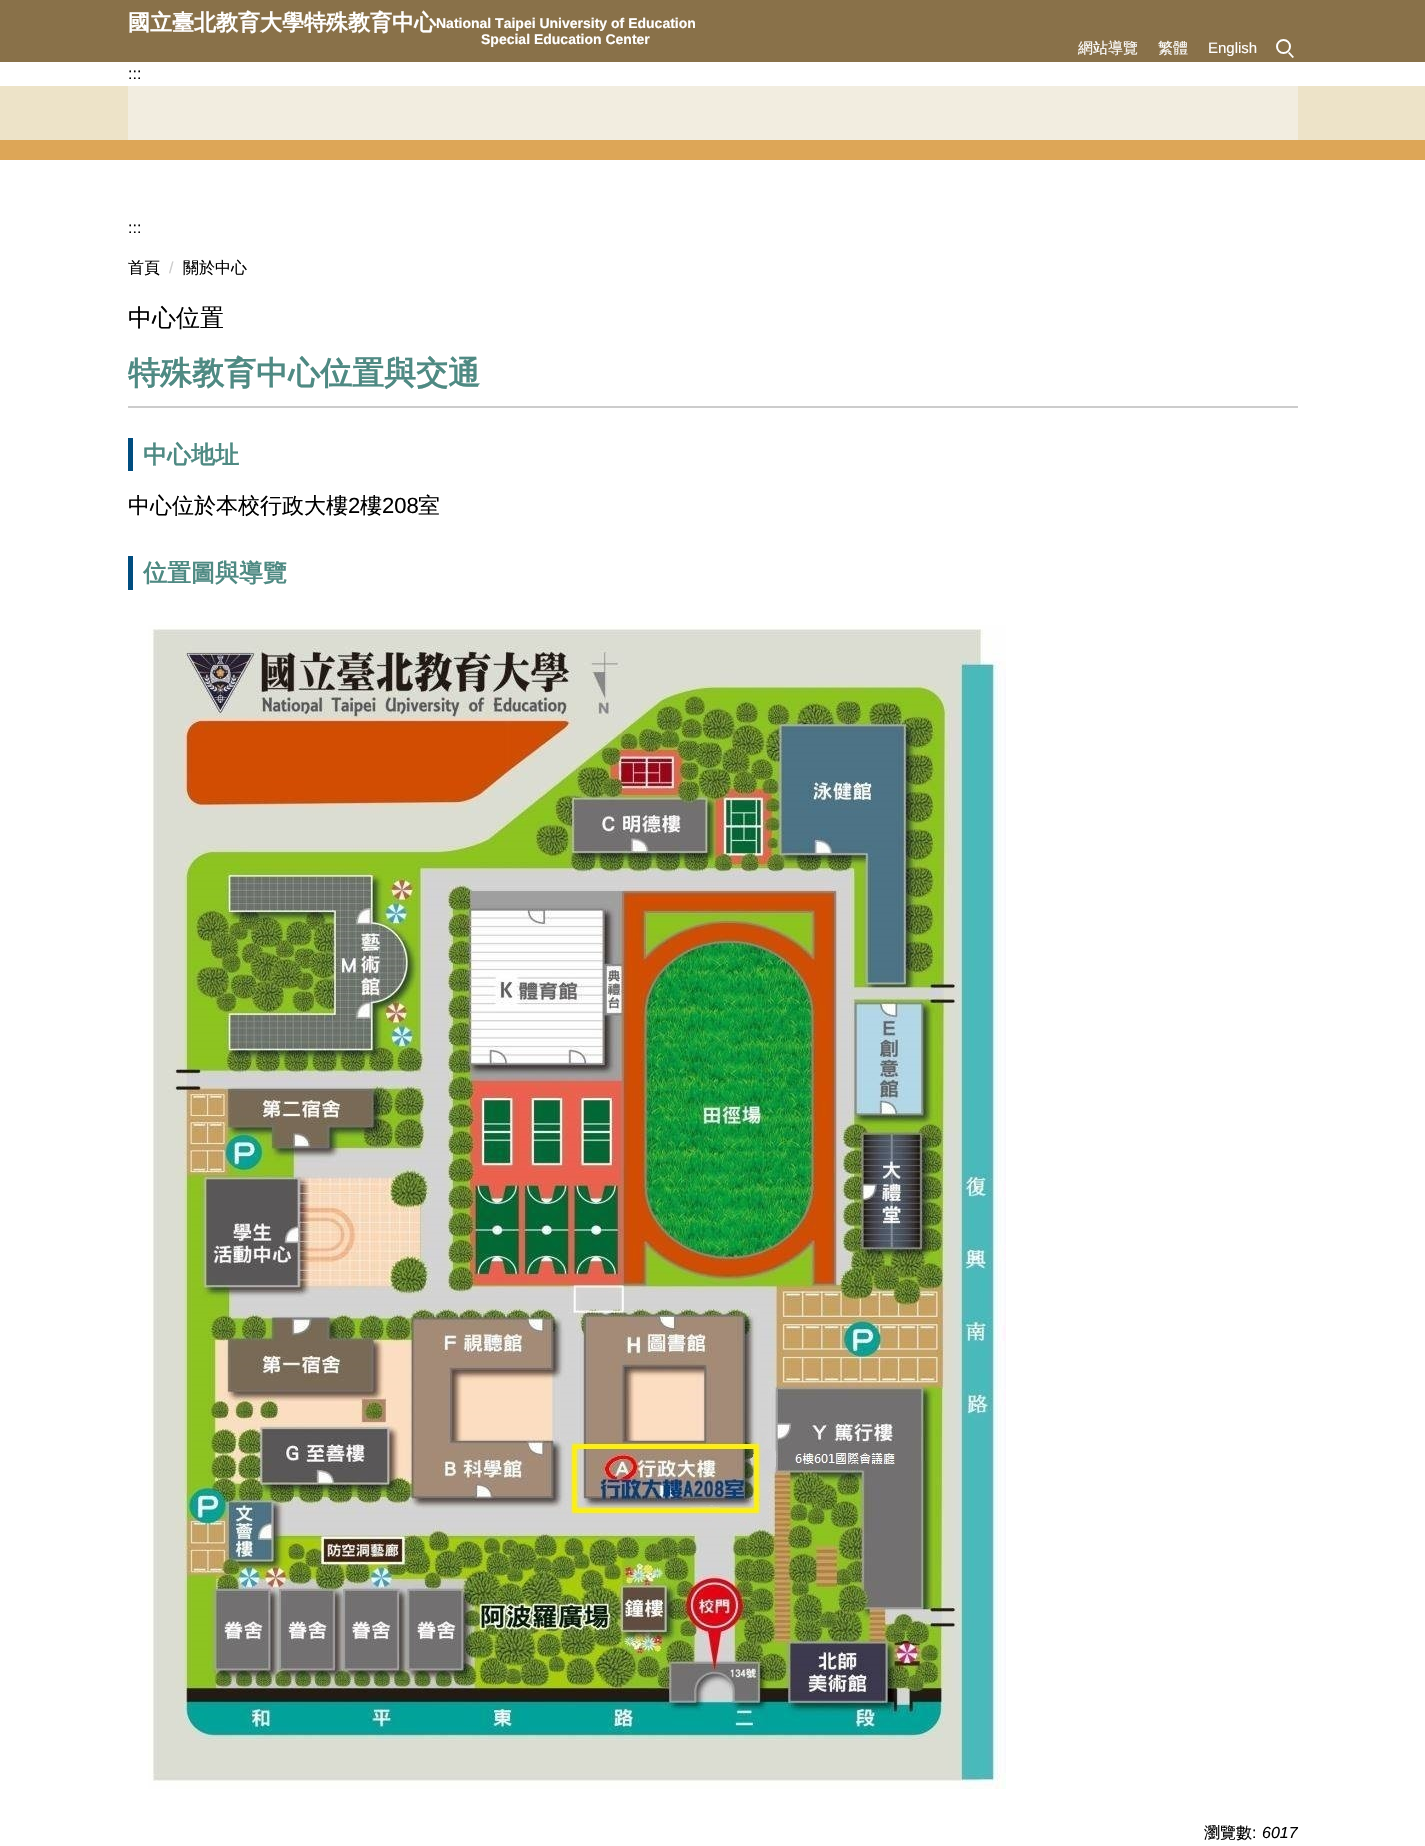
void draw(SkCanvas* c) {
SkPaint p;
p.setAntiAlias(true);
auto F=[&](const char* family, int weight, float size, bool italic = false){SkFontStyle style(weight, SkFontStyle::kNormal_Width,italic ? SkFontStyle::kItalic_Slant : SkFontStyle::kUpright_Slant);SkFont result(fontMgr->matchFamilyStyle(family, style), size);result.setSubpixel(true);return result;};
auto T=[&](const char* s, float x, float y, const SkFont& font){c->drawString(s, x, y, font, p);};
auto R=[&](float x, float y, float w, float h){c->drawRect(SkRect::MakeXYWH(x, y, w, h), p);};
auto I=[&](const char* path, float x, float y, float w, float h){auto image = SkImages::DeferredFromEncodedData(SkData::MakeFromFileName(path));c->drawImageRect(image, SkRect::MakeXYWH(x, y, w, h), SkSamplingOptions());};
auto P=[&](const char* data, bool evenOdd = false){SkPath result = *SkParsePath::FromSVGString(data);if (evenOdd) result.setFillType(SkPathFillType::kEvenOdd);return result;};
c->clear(0xffffffff);
p.setColor(0xff897149);
R(0,0,1425,62);
auto f1 = F("WenQuanYi Zen Hei",700,22);
p.setColor(0xffffffff);
T("國立臺北教育大學特殊教育中心",128,30,f1);
auto f2 = F("Liberation Sans",700,14);
T("National Taipei University of Education",436,28,f2);
T("Special Education Center",481,44,f2);
auto f3 = F("WenQuanYi Zen Hei",500,15);
T("網站導覽",1078,53,f3);
T("繁體",1158,53,f3);
auto f4 = F("Liberation Sans",400,15);
T("English",1208,53,f4);
p.setStroke(true);
p.setStrokeWidth(2);
c->drawCircle(1283.5,46.5,6.5,p);
p.setStroke(false);
c->drawPath(P("M1289.5 52l4.5 5l-1.5 1l-4.5-5z"),p);
p.setColor(0xffdda657);
R(0,140,1425,20);
auto f5 = F("Liberation Sans",400,16);
p.setColor(0xff000000);
T(":::",128,79,f5);
p.setColor(0xffede3c8);
R(0,86,1425,54);
p.setColor(0xfff2ede0);
R(128,86,1170,54);
p.setColor(0xff000000);
T(":::",128,233,f5);
auto f6 = F("WenQuanYi Zen Hei",500,16);
T("首頁",128,273,f6);
p.setColor(0xffcccccc);
T("/",169,273,f5);
p.setColor(0xff000000);
T("關於中心",183,273,f6);
auto f7 = F("WenQuanYi Zen Hei",500,24);
T("中心位置",128,326,f7);
p.setColor(0xffcccccc);
R(128,406,1170,2);
auto f8 = F("WenQuanYi Zen Hei",700,32);
p.setColor(0xff4f8a83);
T("特殊教育中心位置與交通",128,384,f8);
p.setColor(0xff004d80);
R(128,438,5,33);
auto f9 = F("WenQuanYi Zen Hei",700,24);
p.setColor(0xff4f8a83);
T("中心地址",143,463,f9);
auto f10 = F("WenQuanYi Zen Hei",500,22);
p.setColor(0xff000000);
T("中心位於本校行政大樓",128,513,f10);
auto f11 = F("Liberation Sans",400,22);
T("2",348,513,f11);
T("樓",360,513,f10);
T("208",382,513,f11);
T("室",418,513,f10);
p.setColor(0xff004d80);
R(128,556,5,34);
p.setColor(0xff4f8a83);
T("位置圖與導覽",143,581,f9);
I("1.png",148,625,858,1164);
p.setColor(0xff000000);
T("瀏覽數",1204,1838,f6);
T(":",1252,1838,f5);
auto f12 = F("Liberation Sans",400,16,true);
T("6017",1262,1838,f12);
}
